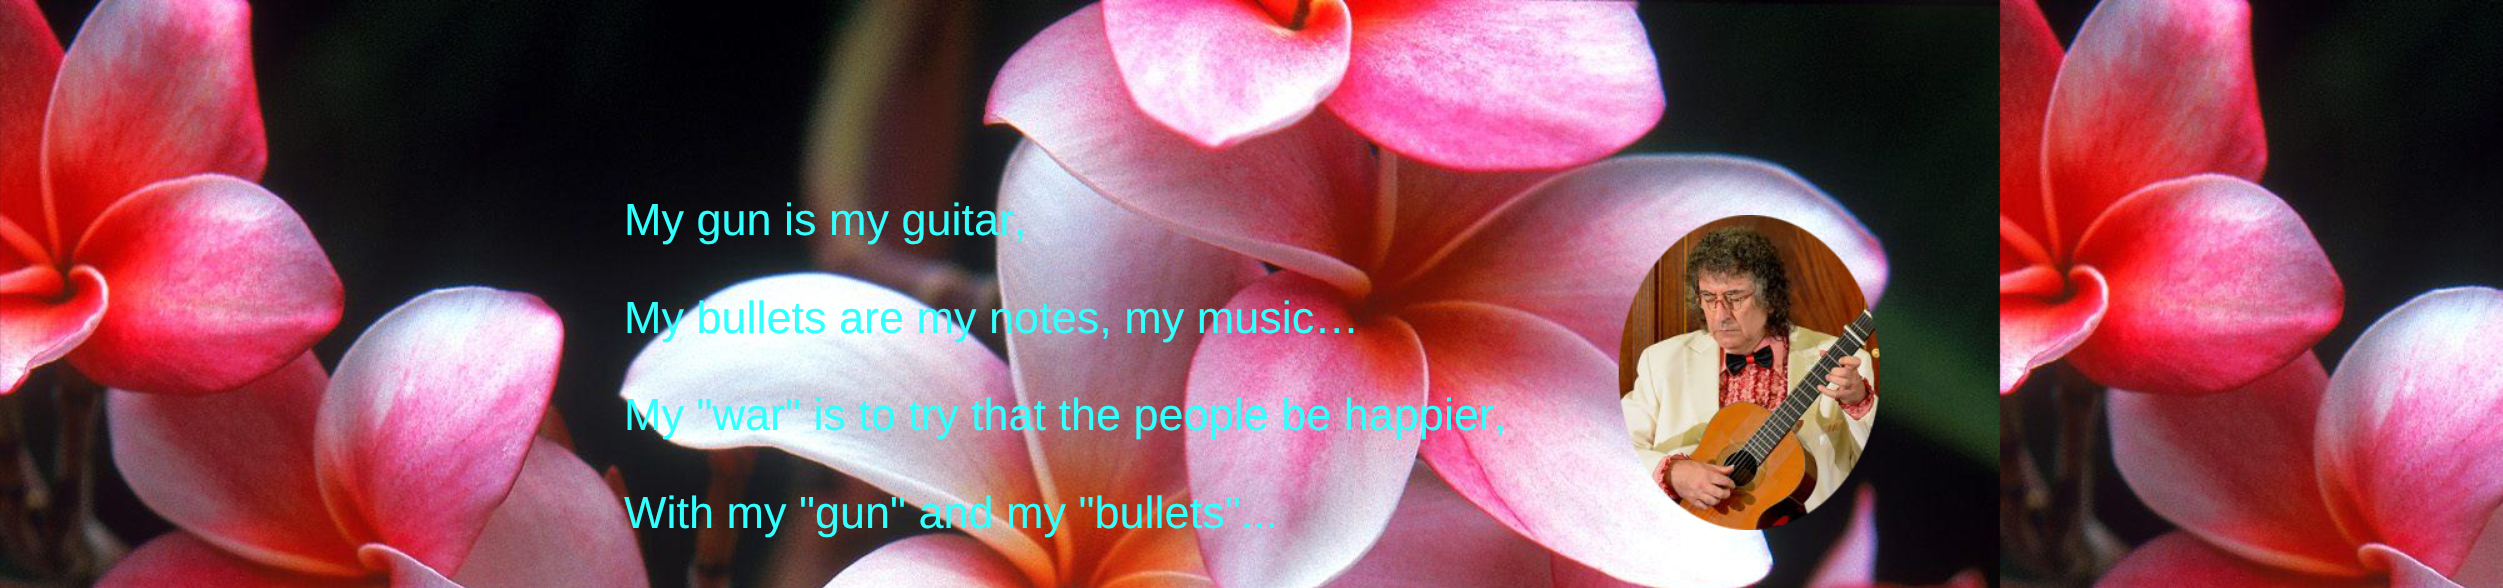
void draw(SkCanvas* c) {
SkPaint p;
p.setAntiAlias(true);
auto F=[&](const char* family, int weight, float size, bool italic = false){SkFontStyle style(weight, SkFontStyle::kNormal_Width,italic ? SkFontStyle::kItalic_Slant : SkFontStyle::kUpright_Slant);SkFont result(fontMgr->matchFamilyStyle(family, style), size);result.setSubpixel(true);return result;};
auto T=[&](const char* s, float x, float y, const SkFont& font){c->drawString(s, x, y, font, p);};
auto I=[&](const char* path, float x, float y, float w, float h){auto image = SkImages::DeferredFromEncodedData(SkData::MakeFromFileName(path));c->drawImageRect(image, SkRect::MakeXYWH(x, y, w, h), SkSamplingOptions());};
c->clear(0xffffffff);
I("1.png",0,0,2503,588);
auto f1 = F("Liberation Sans",400,45);
p.setColor(0xff33ffff);
T("My gun is my guitar,",624,235,f1);
T("My bullets are my notes, my music…",624,333,f1);
T("My \"war\" is to try that the people be happier,",624,430,f1);
T("With my \"gun\" and my \"bullets\"...",624,528,f1);
I("2.png",1618,215,262,315);
}
